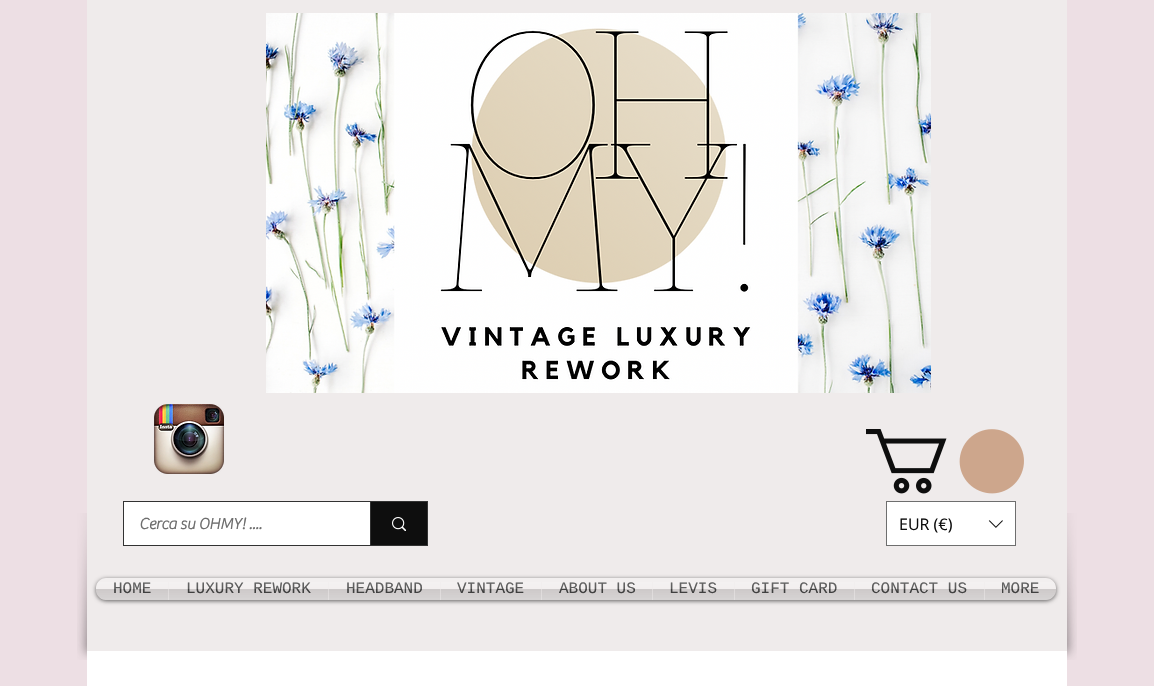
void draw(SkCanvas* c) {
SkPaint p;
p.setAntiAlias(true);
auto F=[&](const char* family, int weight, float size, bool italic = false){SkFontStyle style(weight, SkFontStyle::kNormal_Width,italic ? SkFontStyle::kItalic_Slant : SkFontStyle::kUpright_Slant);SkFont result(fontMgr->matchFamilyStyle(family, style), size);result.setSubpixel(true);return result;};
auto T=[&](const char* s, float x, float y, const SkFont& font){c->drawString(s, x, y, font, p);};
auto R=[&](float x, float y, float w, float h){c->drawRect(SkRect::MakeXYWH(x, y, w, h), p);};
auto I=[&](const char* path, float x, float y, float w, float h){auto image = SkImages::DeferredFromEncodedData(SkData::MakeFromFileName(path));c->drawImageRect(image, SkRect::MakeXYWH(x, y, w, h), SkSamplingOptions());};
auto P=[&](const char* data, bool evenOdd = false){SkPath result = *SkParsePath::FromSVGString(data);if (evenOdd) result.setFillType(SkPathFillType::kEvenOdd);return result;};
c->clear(0xffeddfe4);
I("1.png",77,513,10,147);
p.setColor(0xffefebeb);
R(87,0,980,651);
I("2.png",1067,513,10,147);
I("3.png",266,13,665,380);
I("4.png",154,404,70,70);
I("5.png",866,429,158,65);
p.setStroke(true);
p.setStrokeWidth(1);
p.setColor(0xff323232);
c->drawRect(SkRect::MakeXYWH(123.5,501.5,304,44),p);
p.setStroke(false);
p.setColor(0xffffffff);
R(124,502,246,43);
auto f1 = F("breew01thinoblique",700,16);
p.setColor(0xff6e6e6e);
T("Cerca su OHMY! ....",139,529,f1);
p.setColor(0xff0e0e0e);
R(371,502,56,43);
p.setColor(0xff323232);
R(370,502,1,43);
I("6.png",392,517,14,14);
p.setColor(0xffffffff);
c->drawRect(SkRect::MakeXYWH(886.5,501.5,129,44),p);
p.setStroke(true);
p.setColor(0xff6e6e6e);
c->drawRect(SkRect::MakeXYWH(886.5,501.5,129,44),p);
auto f2 = F("Open Sans",400,16);
p.setStroke(false);
p.setColor(0xff0e0e0e);
T("EUR (€)",899,530,f2);
I("7.png",988,520,15,8);
c->save();
c->clipPath(P("M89 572h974v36h-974zm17 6h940c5.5 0 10 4.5 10 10v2c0 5.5-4.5 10-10 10h-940c-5.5 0-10-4.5-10-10v-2c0-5.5 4.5-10 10-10z",true),true);
p.setColor(0x99000000);
p.setMaskFilter(SkMaskFilter::MakeBlur(kNormal_SkBlurStyle, 2));
c->drawRoundRect(SkRect::MakeXYWH(96,579,960,22),10,10,p);
p.setMaskFilter(nullptr);
c->restore();
I("8.png",96,578,960,22);
auto f3 = F("Liberation Mono",400,16);
p.setColor(0xff444444);
T("HOME",113,593,f3);
I("9.png",96,582,72,18);
T("LUXURY REWORK",186,593,f3);
I("10.png",169,582,159,18);
T("HEADBAND",346,593,f3);
I("11.png",329,582,111,18);
T("VINTAGE",457,593,f3);
I("12.png",441,582,100,18);
T("ABOUT US",559,593,f3);
I("13.png",542,582,110,18);
T("LEVIS",669,593,f3);
I("14.png",653,582,81,18);
T("GIFT CARD",751,593,f3);
I("15.png",735,582,119,18);
T("CONTACT US",871,593,f3);
I("16.png",855,582,129,18);
T("MORE",1001,593,f3);
I("17.png",985,582,71,18);
p.setColor(0xffffffff);
R(87,651,980,35);
}
